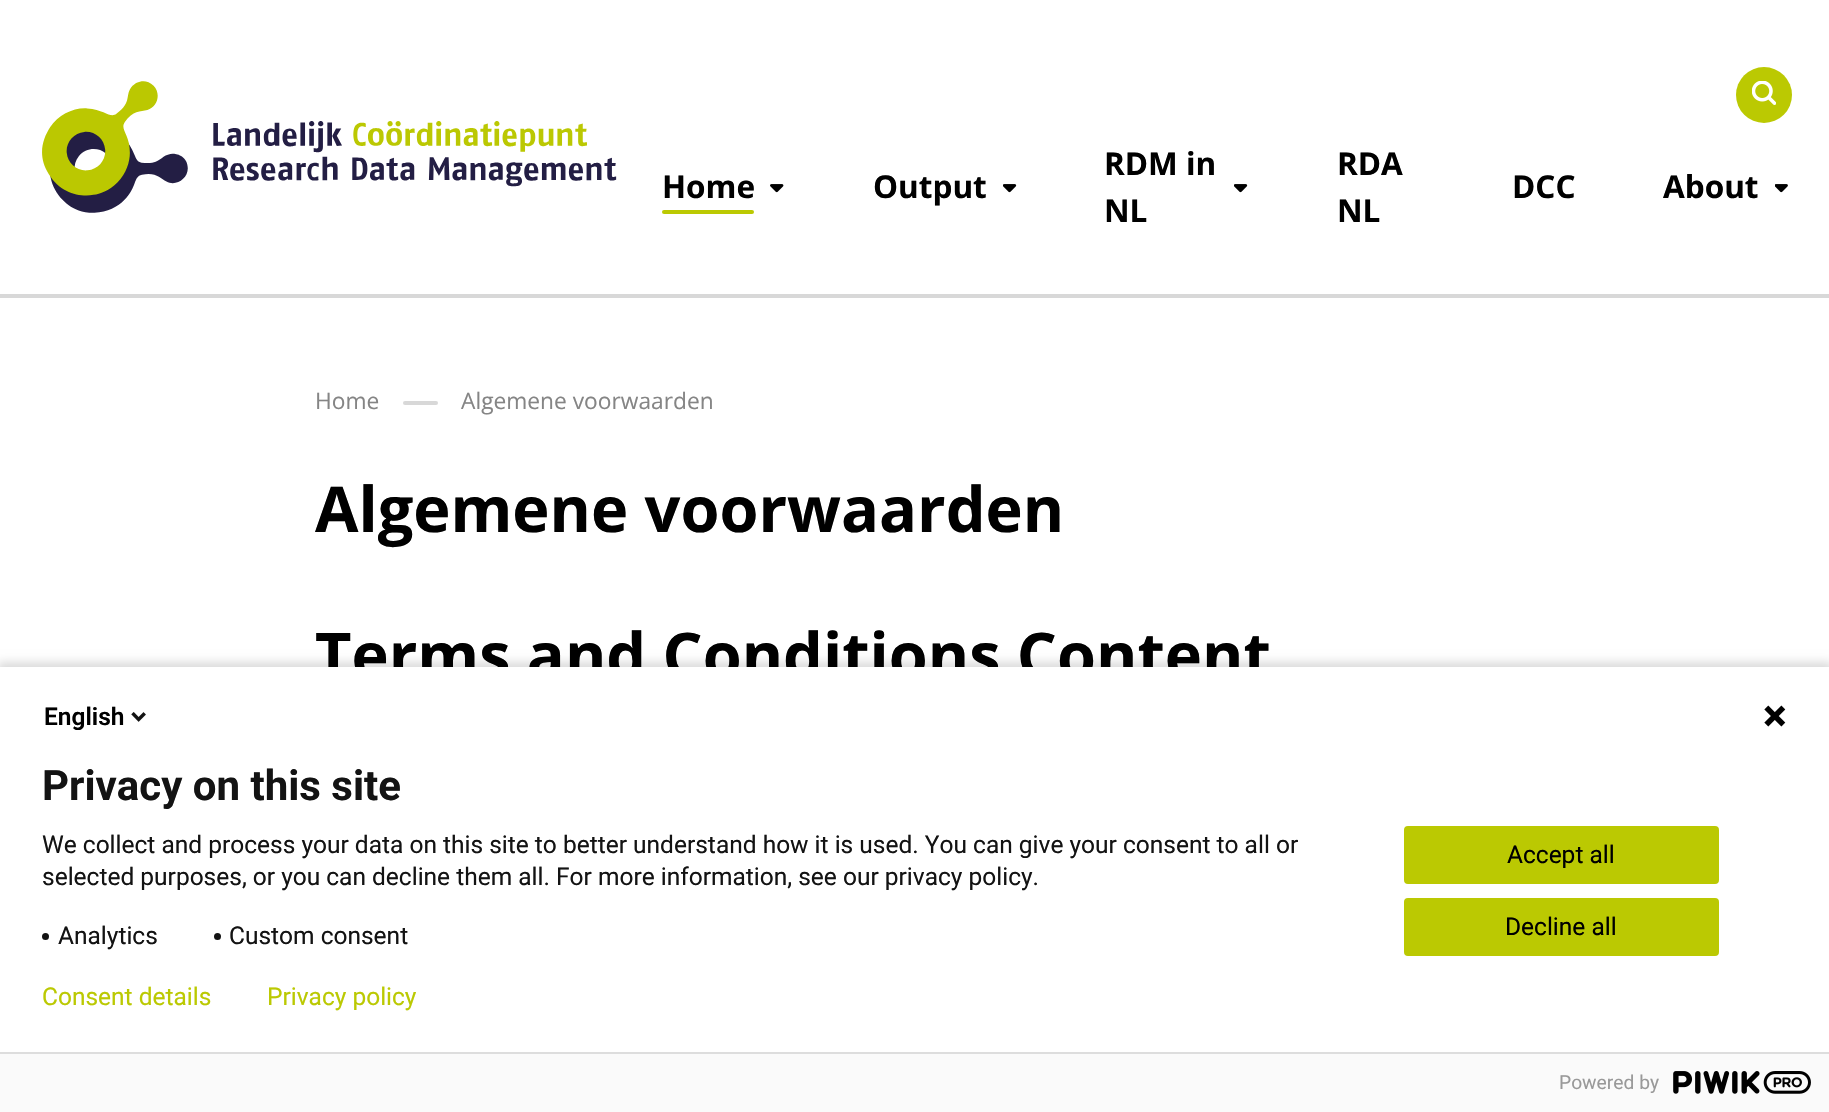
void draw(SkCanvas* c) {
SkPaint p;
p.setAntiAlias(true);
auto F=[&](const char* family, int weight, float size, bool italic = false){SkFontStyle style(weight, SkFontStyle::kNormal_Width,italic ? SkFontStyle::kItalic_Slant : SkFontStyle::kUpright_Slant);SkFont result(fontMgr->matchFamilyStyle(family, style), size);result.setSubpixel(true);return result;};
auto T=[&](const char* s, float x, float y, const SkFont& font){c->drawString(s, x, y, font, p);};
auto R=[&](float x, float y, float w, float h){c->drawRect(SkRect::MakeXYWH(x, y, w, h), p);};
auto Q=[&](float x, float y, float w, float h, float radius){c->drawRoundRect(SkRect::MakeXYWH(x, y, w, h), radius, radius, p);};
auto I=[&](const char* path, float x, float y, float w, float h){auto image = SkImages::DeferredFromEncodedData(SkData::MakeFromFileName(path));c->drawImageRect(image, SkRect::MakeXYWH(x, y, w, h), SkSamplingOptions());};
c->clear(0xffffffff);
I("1.png",42,81,575,132);
p.setColor(0xffbbc902);
c->drawCircle(1764,95,28,p);
I("2.png",1752,81,24,24);
auto f1 = F("Open Sans",700,31.5);
p.setColor(0xff000000);
T("Home",662,198,f1);
p.setColor(0xffbbc902);
Q(662,210,92,4,2);
I("3.png",770,184,14,9);
p.setColor(0xff000000);
T("Output",873,198,f1);
I("4.png",1003,184,14,9);
T("RDM in",1104,175,f1);
T("NL",1104,222,f1);
I("4.png",1234,184,14,9);
T("RDA",1337,175,f1);
T("NL",1337,222,f1);
T("DCC",1512,198,f1);
T("About",1663,198,f1);
I("5.png",1775,184,13,9);
p.setColor(0xffd8d8d8);
R(0,294,1829,4);
auto f2 = F("Open Sans",400,22.75);
p.setColor(0xff858585);
T("Home",315,409,f2);
p.setColor(0xffd8d8d8);
Q(403,401,35,4,2);
p.setColor(0xff858585);
T("Algemene voorwaarden",461,409,f2);
auto f3 = F("Open Sans",700,63);
p.setColor(0xff000000);
T("Algemene voorwaarden",315,532,f3);
T("Terms and Conditions Content",315,678,f3);
p.setColor(0x24000000);
p.setMaskFilter(SkMaskFilter::MakeBlur(kNormal_SkBlurStyle, 4.5));
c->drawRect(SkRect::MakeXYWH(-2,662,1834,449),p);
p.setMaskFilter(nullptr);
p.setColor(0xffffffff);
R(0,667,1829,385);
auto f4 = F("Roboto",600,24.5);
p.setColor(0xff000000);
T("English",44,725,f4);
I("6.png",131,712,15,10);
I("7.png",1764,705,22,22);
auto f5 = F("Roboto",700,42);
p.setColor(0xff131313);
T("Privacy on this site",42,800,f5);
auto f6 = F("Roboto",400,24.5);
T("We collect and process your data on this site to better understand how it is used. You can give your consent to all or",42,853,f6);
T("selected purposes, or you can decline them all. For more information, see our privacy policy.",42,885,f6);
c->drawCircle(45.5,936.5,3.5,p);
T("Analytics",58,944,f6);
c->drawCircle(217.5,936.5,3.5,p);
T("Custom consent",229,944,f6);
p.setColor(0xffbbc902);
c->drawRoundRect(SkRect::MakeXYWH(1405,827,313,56),3,3,p);
p.setStroke(true);
p.setStrokeWidth(2);
c->drawRoundRect(SkRect::MakeXYWH(1405,827,313,56),3,3,p);
p.setStroke(false);
p.setColor(0xff000000);
T("Accept all",1507,863,f6);
p.setColor(0xffbbc902);
c->drawRoundRect(SkRect::MakeXYWH(1405,899,313,56),3,3,p);
p.setStroke(true);
c->drawRoundRect(SkRect::MakeXYWH(1405,899,313,56),3,3,p);
p.setStroke(false);
p.setColor(0xff000000);
T("Decline all",1505,935,f6);
p.setColor(0xffbbc902);
T("Consent details",42,1005,f6);
T("Privacy policy",267,1005,f6);
p.setColor(0xfffafafa);
R(0,1054,1829,58);
p.setColor(0xffdddddd);
R(0,1052,1829,2);
auto f7 = F("Roboto",400,19.25);
p.setColor(0xff999999);
T("Powered by",1559,1089,f7);
I("8.png",1673,1071,138,23);
}
